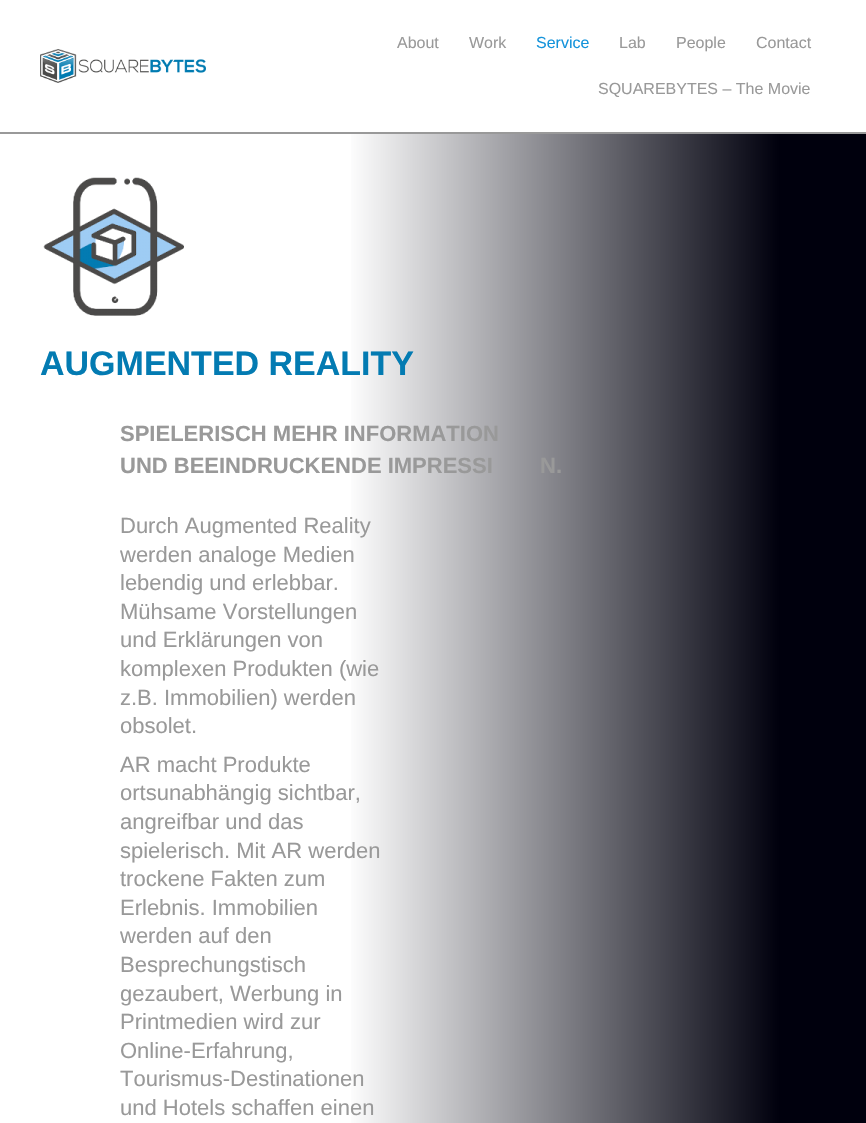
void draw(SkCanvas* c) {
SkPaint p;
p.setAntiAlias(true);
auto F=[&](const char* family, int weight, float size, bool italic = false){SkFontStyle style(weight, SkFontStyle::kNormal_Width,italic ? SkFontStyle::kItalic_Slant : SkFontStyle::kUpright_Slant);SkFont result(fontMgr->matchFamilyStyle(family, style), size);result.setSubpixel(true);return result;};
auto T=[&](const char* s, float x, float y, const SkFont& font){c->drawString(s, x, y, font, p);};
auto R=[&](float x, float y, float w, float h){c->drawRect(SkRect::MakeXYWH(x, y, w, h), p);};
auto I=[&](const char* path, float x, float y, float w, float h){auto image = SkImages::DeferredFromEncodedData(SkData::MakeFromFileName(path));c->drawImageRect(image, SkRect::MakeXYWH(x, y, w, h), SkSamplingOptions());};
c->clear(0xffffffff);
p.setColor(0xff999999);
R(0,132,866,2);
I("1.png",40,49,166,34);
auto f1 = F("Liberation Sans",400,16);
T("About",397,48,f1);
T("Work",469,48,f1);
p.setColor(0xff1493db);
T("Service",536,48,f1);
p.setColor(0xff999999);
T("Lab",619,48,f1);
T("People",676,48,f1);
T("Contact",756,48,f1);
T("SQUAREBYTES – The Movie",598,94,f1);
I("2.png",43,177,141,139);
{
const SkColor colors[] = {0xffffffff,0xff00000d};
const float stops[] = {.4,.9};
const SkPoint ends[] = {{0,943}, {866,943}};
p.setShader(SkGradientShader::MakeLinear(ends, colors, stops, 2, SkTileMode::kClamp));
p.setAlpha(255);
}
R(351,134,515,989);
auto f2 = F("Liberation Sans",700,34);
p.setShader(nullptr);
p.setColor(0xff037bb2);
T("AUGMENTED REALITY",40,375,f2);
auto f3 = F("Liberation Sans",700,22);
p.setColor(0xff999999);
T("SPIELERISCH MEHR INFORMATION",120,441,f3);
T("UND BEEINDRUCKENDE IMPRESSI",120,473,f3);
T("N.",540,473,f3);
auto f4 = F("Liberation Sans",400,22);
T("Durch Augmented Reality",120,533,f4);
T("werden analoge Medien",120,562,f4);
T("lebendig und erlebbar.",120,590,f4);
T("Mühsame Vorstellungen",120,619,f4);
T("und Erklärungen von",120,647,f4);
T("komplexen Produkten (wie",120,676,f4);
T("z.B. Immobilien) werden",120,705,f4);
T("obsolet.",120,733,f4);
T("AR macht Produkte",120,772,f4);
T("ortsunabhängig sichtbar,",120,800,f4);
T("angreifbar und das",120,829,f4);
T("spielerisch. Mit AR werden",120,858,f4);
T("trockene Fakten zum",120,886,f4);
T("Erlebnis. Immobilien",120,915,f4);
T("werden auf den",120,943,f4);
T("Besprechungstisch",120,972,f4);
T("gezaubert, Werbung in",120,1001,f4);
T("Printmedien wird zur",120,1029,f4);
T("Online-Erfahrung,",120,1058,f4);
T("Tourismus-Destinationen",120,1086,f4);
T("und Hotels schaffen einen",120,1115,f4);
}
